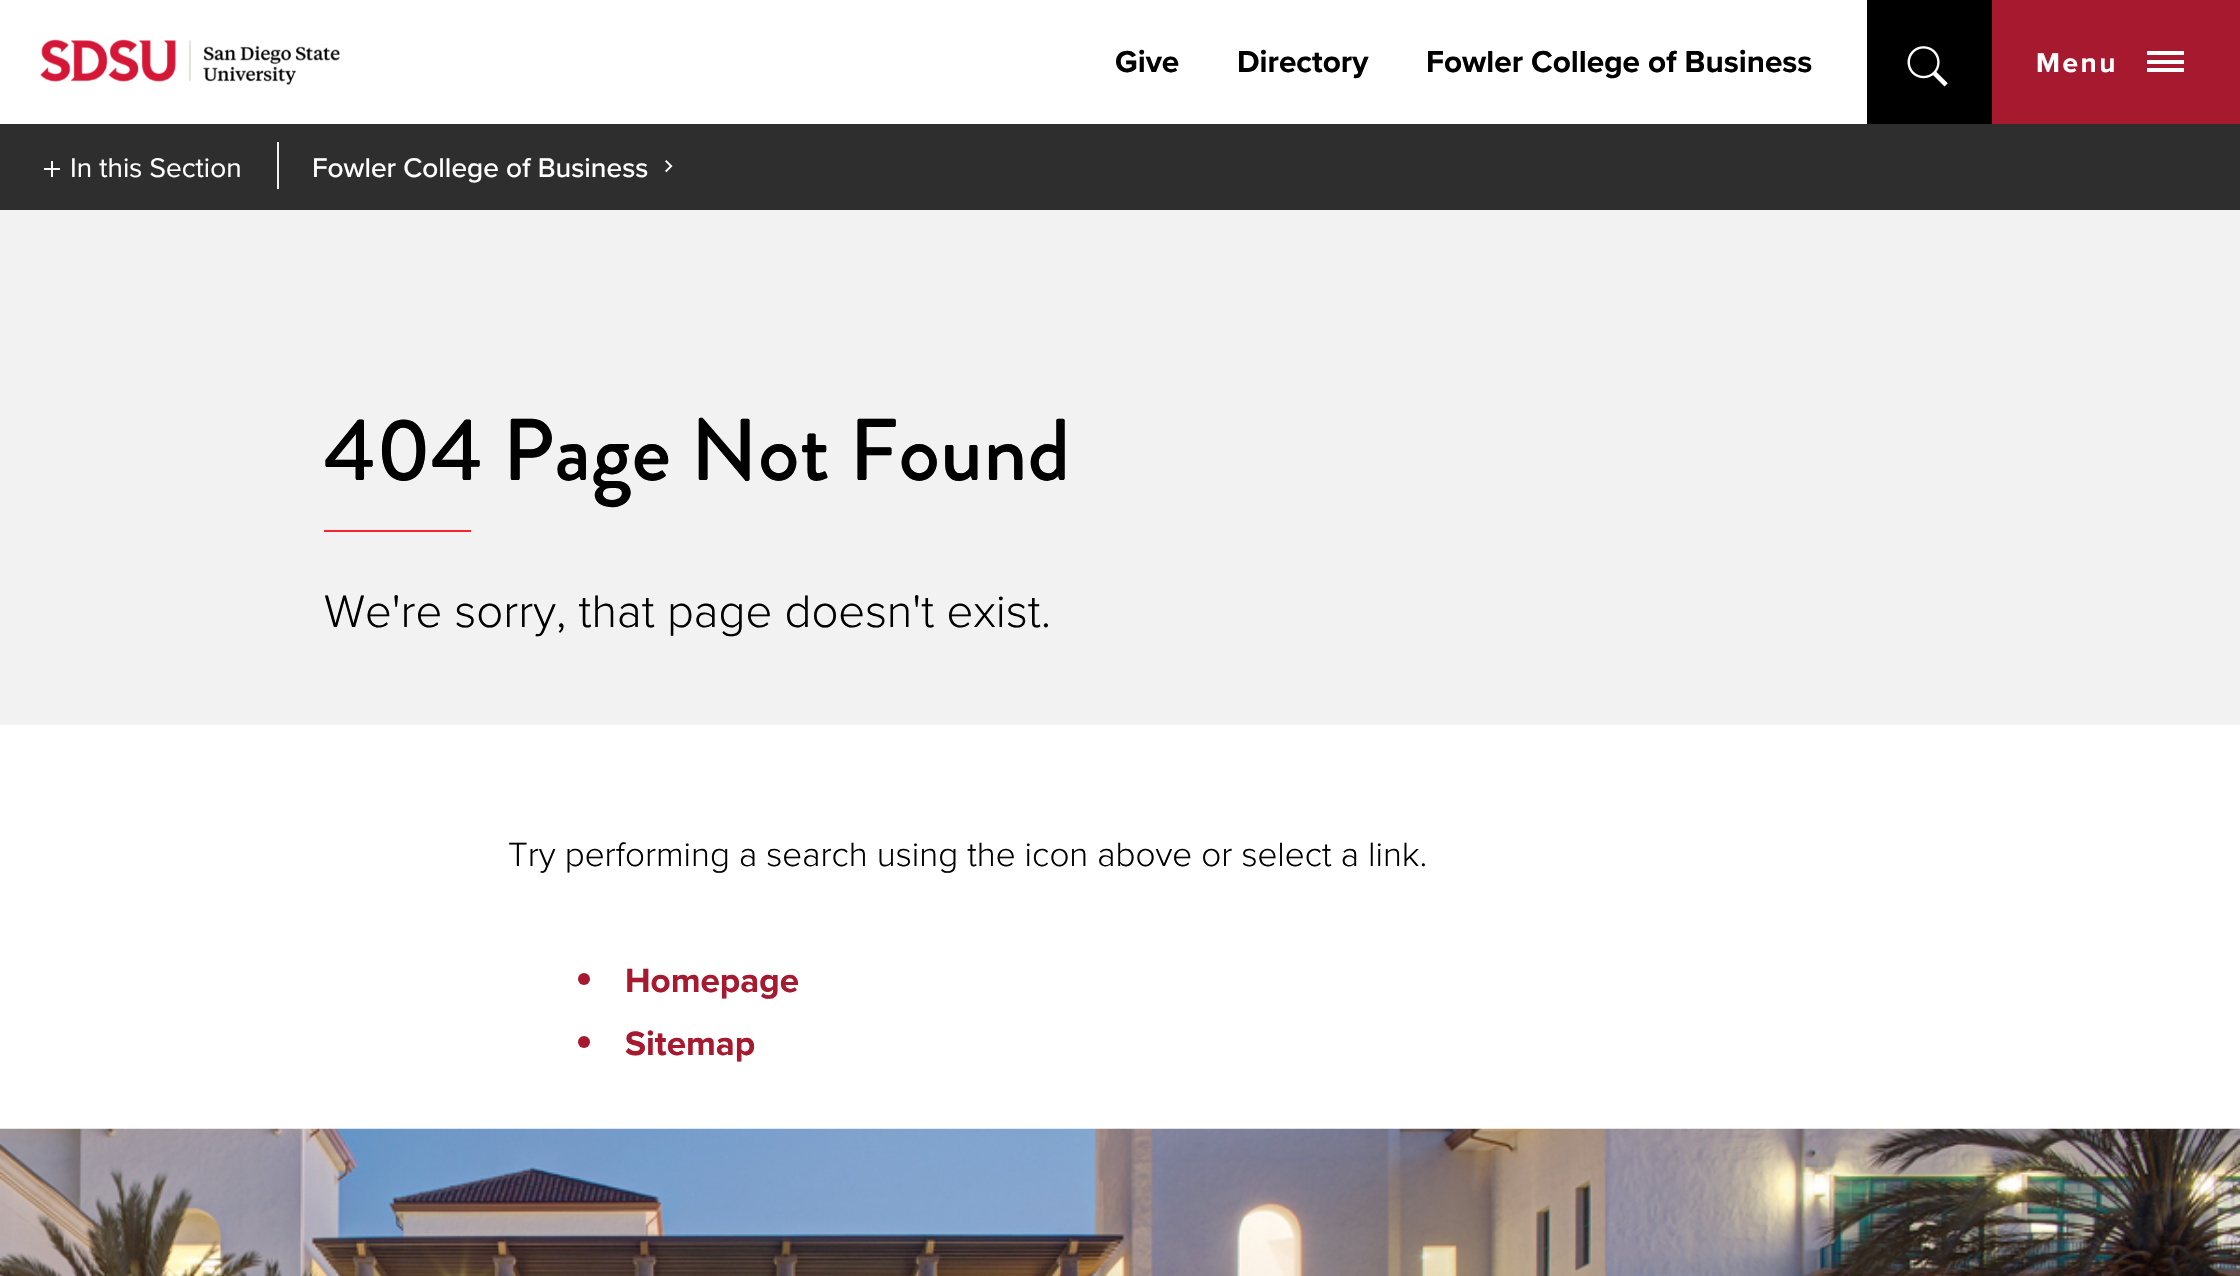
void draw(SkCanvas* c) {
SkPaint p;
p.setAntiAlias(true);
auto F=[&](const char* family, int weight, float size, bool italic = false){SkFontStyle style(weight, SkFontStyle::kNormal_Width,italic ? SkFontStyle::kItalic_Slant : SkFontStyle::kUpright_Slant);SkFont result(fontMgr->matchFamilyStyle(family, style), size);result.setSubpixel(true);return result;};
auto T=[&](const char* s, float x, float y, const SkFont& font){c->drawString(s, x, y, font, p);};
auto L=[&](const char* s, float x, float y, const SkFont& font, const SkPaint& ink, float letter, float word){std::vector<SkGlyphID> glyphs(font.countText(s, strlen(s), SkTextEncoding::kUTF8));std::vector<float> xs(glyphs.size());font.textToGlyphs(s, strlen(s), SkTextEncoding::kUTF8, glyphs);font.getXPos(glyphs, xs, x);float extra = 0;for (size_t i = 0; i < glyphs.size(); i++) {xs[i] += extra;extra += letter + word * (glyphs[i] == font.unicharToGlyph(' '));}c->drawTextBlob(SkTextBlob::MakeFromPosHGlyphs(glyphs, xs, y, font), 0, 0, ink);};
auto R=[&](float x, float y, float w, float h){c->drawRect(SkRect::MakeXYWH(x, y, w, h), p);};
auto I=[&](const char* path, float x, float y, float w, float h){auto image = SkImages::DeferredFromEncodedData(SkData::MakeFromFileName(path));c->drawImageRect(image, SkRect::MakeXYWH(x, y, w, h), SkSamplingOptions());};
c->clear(0xffffffff);
I("1.png",40,39,300,46);
auto f1 = F("Proxima Nova",700,31.5);
p.setColor(0xff000000);
T("Give",1115,72,f1);
T("Directory",1237,72,f1);
T("Fowler College of Business",1426,72,f1);
R(1867,0,125,124);
I("2.png",1907,46,41,41);
p.setColor(0xffa6192e);
R(1992,0,248,124);
auto f2 = F("Proxima Nova",700,28);
p.setColor(0xffffffff);
L("Menu",2036,72,f2,p,2.5,0);
R(2147,51,37,4);
R(2147,60,37,4);
R(2147,68,37,4);
p.setColor(0xff2e2e2e);
R(0,124,2240,86);
p.setColor(0xffffffff);
R(44,168,16,2);
R(51,161,2,16);
auto f3 = F("Proxima Nova",400,28);
T("In this Section",70,177,f3);
p.setColor(0xfff2f2f2);
R(277,142,2,47);
auto f4 = F("Proxima Nova",500,28);
p.setColor(0xffffffff);
T("Fowler College of Business",312,177,f4);
I("3.png",665,160,8,13);
p.setColor(0xfff2f2f2);
R(0,210,2240,515);
auto f5 = F("Brandon Grotesque",500,87.5);
p.setColor(0xff000000);
T("404 Page Not Found",324,480,f5);
p.setColor(0xfff62530);
R(324,530,147,2);
auto f6 = F("Proxima Nova",300,47.25);
p.setColor(0xff000000);
T("We're sorry, that page doesn't exist.",324,627,f6);
auto f7 = F("Proxima Nova",300,35);
T("Try performing a search using the icon above or select a link.",508,866,f7);
p.setColor(0xffa6192e);
c->drawCircle(584,979,6,p);
auto f8 = F("Proxima Nova",700,35);
T("Homepage",625,992,f8);
c->drawCircle(584,1042,6,p);
T("Sitemap",625,1055,f8);
I("4.png",0,1128,2240,148);
}
